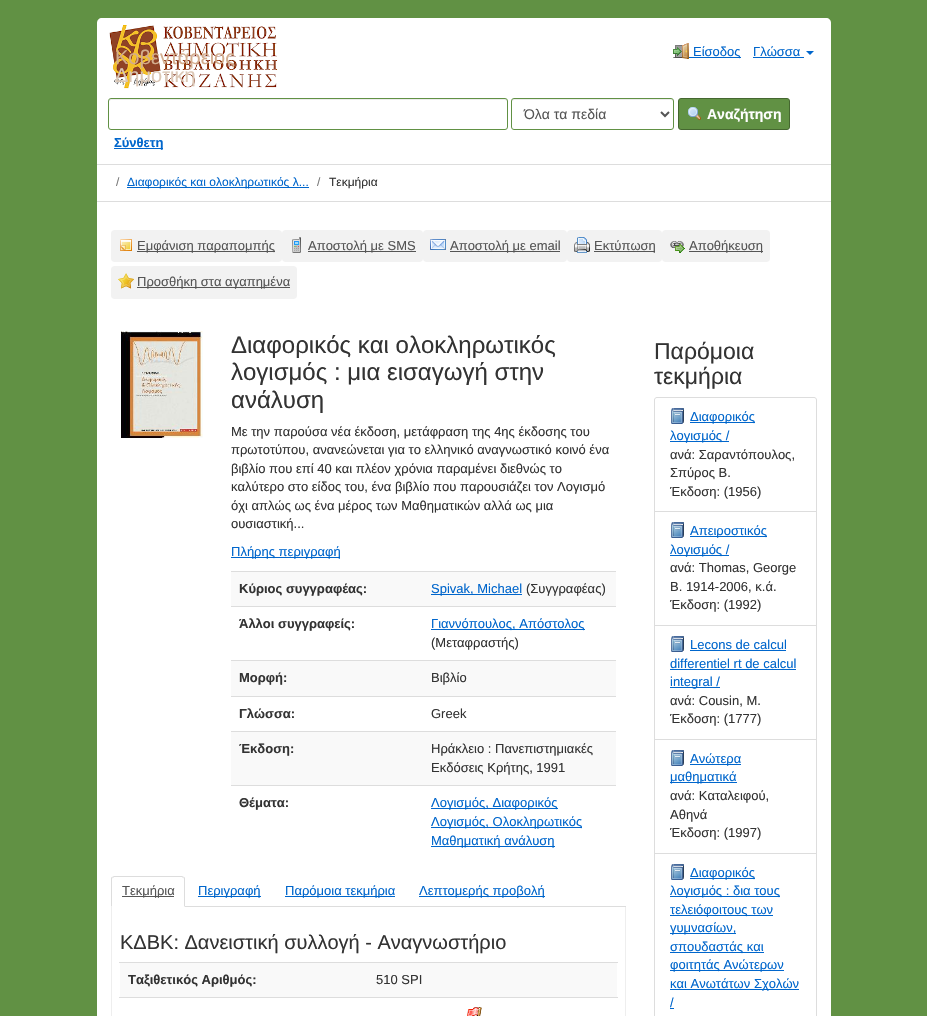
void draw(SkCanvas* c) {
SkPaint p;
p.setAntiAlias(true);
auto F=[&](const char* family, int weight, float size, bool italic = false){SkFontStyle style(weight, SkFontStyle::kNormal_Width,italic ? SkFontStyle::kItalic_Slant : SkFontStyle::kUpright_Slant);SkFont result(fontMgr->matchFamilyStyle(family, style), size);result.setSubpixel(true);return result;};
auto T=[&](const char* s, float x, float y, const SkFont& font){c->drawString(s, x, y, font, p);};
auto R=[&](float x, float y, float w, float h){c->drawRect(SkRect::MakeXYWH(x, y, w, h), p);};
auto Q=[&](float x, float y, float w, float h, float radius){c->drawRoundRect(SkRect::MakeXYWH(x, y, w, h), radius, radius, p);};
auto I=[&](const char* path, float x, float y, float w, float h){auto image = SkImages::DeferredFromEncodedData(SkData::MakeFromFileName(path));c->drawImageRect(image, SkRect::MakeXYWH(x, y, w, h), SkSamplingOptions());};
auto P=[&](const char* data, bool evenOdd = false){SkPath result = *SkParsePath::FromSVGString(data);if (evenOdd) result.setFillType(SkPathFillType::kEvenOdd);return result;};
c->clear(0xff619144);
p.setColor(0xffffffff);
c->drawPath(P("M102 18h724c3 0 5 2 5 5v67h-734v-67c0-3 2-5 5-5z"),p);
I("1.png",109,25,169,64);
auto f1 = F("Liberation Sans",400,20);
p.setColor(0xffd3ad8e);
T("Κοβεντάρειος",115,64,f1);
p.setColor(0xffdbc7b5);
T("Δημοτική",115,82,f1);
I("2.png",673,43,16,16);
p.setColor(0xff0066cc);
R(689,57,52,1);
auto f2 = F("Liberation Sans",400,13);
T("Είσοδος",693,56,f2);
T("Γλώσσα",753,56,f2);
R(753,57,51,1);
c->drawPath(P("M806 51h8l-4 4z"),p);
p.setColor(0xffffffff);
R(97,90,734,74);
p.setColor(0xffececec);
c->drawPath(P("M111 100h394c1 0 2 1 2 2c0-1 0-3-2-3h-394l-2 1v2c0-1 1-2 2-2z"),p);
p.setStroke(true);
p.setStrokeWidth(1);
p.setColor(0xff619144);
c->drawRoundRect(SkRect::MakeXYWH(108.5,98.5,399,31),2.5,2.5,p);
p.setStroke(false);
p.setColor(0xffececec);
c->drawPath(P("M514 100h157c1 0 2 1 2 2c0-1 0-3-2-3h-157c-2 0-2 2-2 3c0-1 1-2 2-2z"),p);
p.setStroke(true);
p.setColor(0xff619144);
c->drawRoundRect(SkRect::MakeXYWH(511.5,98.5,162,31),2.5,2.5,p);
p.setStrokeWidth(2);
p.setColor(0xff555555);
c->drawPath(P("M661 112l4 4l4-4"),p);
auto f3 = F("Liberation Sans",400,14);
p.setStroke(false);
T("Όλα τα πεδία",524,119,f3);
p.setColor(0xff619144);
c->drawRoundRect(SkRect::MakeXYWH(678.5,98.5,111,31),2.5,2.5,p);
p.setStroke(true);
p.setStrokeWidth(1);
p.setColor(0xff456730);
c->drawRoundRect(SkRect::MakeXYWH(678.5,98.5,111,31),2.5,2.5,p);
I("3.png",688,107,13,14);
auto f4 = F("Liberation Sans",700,14);
p.setStroke(false);
p.setColor(0xffffffff);
T("Αναζήτηση",707,119,f4);
p.setColor(0xff0066cc);
R(114,148,49,1);
auto f5 = F("Liberation Sans",700,13);
T("Σύνθετη",114,147,f5);
p.setColor(0xffffffff);
R(97,165,734,36);
p.setColor(0xffdddddd);
R(97,164,734,1);
R(97,201,734,1);
auto f6 = F("Liberation Sans",400,12);
p.setColor(0xff777777);
T("/",116,186,f6);
p.setColor(0xff0066cc);
R(127,187,182,1);
T("Διαφορικός και ολοκληρωτικός λ...",127,186,f6);
p.setColor(0xff777777);
T("/",317,186,f6);
p.setColor(0xff333333);
T("Τεκμήρια",329,186,f6);
p.setColor(0xffffffff);
R(97,202,734,814);
p.setColor(0xfff2f2f2);
Q(111,230,171,32,4);
I("4.png",120,239,12,12);
p.setColor(0xff555555);
R(137,251,138,1);
T("Εμφάνιση παραπομπής",137,250,f2);
p.setColor(0xfff2f2f2);
Q(282,230,141,32,4);
I("5.png",292,237,9,16);
p.setColor(0xff555555);
R(308,251,108,1);
T("Αποστολή με SMS",308,250,f2);
p.setColor(0xfff2f2f2);
Q(423,230,144,32,4);
I("6.png",430,239,16,11);
p.setColor(0xff555555);
R(450,251,110,1);
T("Αποστολή με email",450,250,f2);
p.setColor(0xfff2f2f2);
Q(567,230,95,32,4);
I("7.png",574,237,16,16);
p.setColor(0xff555555);
R(594,251,61,1);
T("Εκτύπωση",594,250,f2);
p.setColor(0xfff2f2f2);
Q(662,230,108,32,4);
I("8.png",670,241,15,12);
p.setColor(0xff555555);
R(689,251,74,1);
T("Αποθήκευση",689,250,f2);
p.setColor(0xfff2f2f2);
Q(111,266,186,33,4);
I("9.png",118,273,16,16);
p.setColor(0xff555555);
R(137,287,153,1);
T("Προσθήκη στα αγαπημένα",137,286,f2);
I("10.png",121,331,82,107);
auto f7 = F("Liberation Sans",400,24);
p.setColor(0xff333333);
T("Διαφορικός και ολοκληρωτικός",231,353,f7);
T("λογισμός : μια εισαγωγή στην",231,380,f7);
T("ανάλυση",231,408,f7);
T("Με την παρούσα νέα έκδοση, μετάφραση της 4ης έκδοσης του",231,436,f2);
T("πρωτοτύπου, ανανεώνεται για το ελληνικό αναγνωστικό κοινό ένα",231,454,f2);
T("βιβλίο που επί 40 και πλέον χρόνια παραμένει διεθνώς το",231,473,f2);
T("καλύτερο στο είδος του, ένα βιβλίο που παρουσιάζει τον Λογισμό",231,491,f2);
T("όχι απλώς ως ένα μέρος των Mαθηματικών αλλά ως μια",231,510,f2);
T("ουσιαστική...",231,528,f2);
p.setColor(0xff0066cc);
R(231,557,109,1);
T("Πλήρης περιγραφή",231,556,f2);
p.setColor(0xfff9f9f9);
R(231,572,385,34);
p.setColor(0xff333333);
T("Κύριος συγγραφέας:",239,593,f5);
p.setColor(0xffdddddd);
R(231,571,385,1);
p.setColor(0xff0066cc);
R(431,594,91,1);
T("Spivak, Michael",431,593,f2);
p.setColor(0xff333333);
T("(Συγγραφέας)",526,593,f2);
T("Άλλοι συγγραφείς:",239,628,f5);
p.setColor(0xffdddddd);
R(231,606,385,1);
p.setColor(0xff0066cc);
R(431,629,154,1);
T("Γιαννόπουλος, Απόστολος",431,628,f2);
p.setColor(0xff333333);
T("(Μεταφραστής)",431,647,f2);
p.setColor(0xfff9f9f9);
R(231,661,385,35);
p.setColor(0xff333333);
T("Μορφή:",239,682,f5);
p.setColor(0xffdddddd);
R(231,660,385,1);
p.setColor(0xff333333);
T("Βιβλίο",431,682,f2);
T("Γλώσσα:",239,718,f5);
p.setColor(0xffdddddd);
R(231,696,385,1);
p.setColor(0xff333333);
T("Greek",431,718,f2);
p.setColor(0xfff9f9f9);
R(231,732,385,53);
p.setColor(0xff333333);
T("Έκδοση:",239,753,f5);
p.setColor(0xffdddddd);
R(231,731,385,1);
p.setColor(0xff333333);
T("Ηράκλειο : Πανεπιστημιακές",431,753,f2);
T("Εκδόσεις Κρήτης, 1991",431,772,f2);
T("Θέματα:",239,807,f5);
p.setColor(0xffdddddd);
R(231,785,385,1);
p.setColor(0xff0066cc);
R(431,808,127,1);
T("Λογισμός, Διαφορικός",431,807,f2);
R(431,827,151,1);
T("Λογισμός, Ολοκληρωτικός",431,826,f2);
R(431,846,124,1);
T("Μαθηματική ανάλυση",431,845,f2);
p.setColor(0xffdddddd);
R(185,906,441,1);
c->drawPath(P("M114 876l-2 1l1 1l1-1h68l1 1l1-1l-2-1z"),p);
c->drawPath(P("M185 907v-28c0-1 0-2-1-2l-.5 .5l.5 1.5v27z"),p);
c->drawPath(P("M111 907l1-1v-27l.5-1.5l-.5-.5c-1 0-1 1-1 2z"),p);
p.setColor(0xff555555);
R(122,896,52,1);
T("Τεκμήρια",122,895,f2);
p.setColor(0xff0066cc);
R(198,896,63,1);
T("Περιγραφή",198,895,f2);
R(285,896,110,1);
T("Παρόμοια τεκμήρια",285,895,f2);
R(419,896,126,1);
T("Λεπτομερής προβολή",419,895,f2);
p.setColor(0xffeeeeee);
R(625,907,1,109);
R(111,907,1,109);
p.setColor(0xff333333);
T("ΚΔΒΚ: Δανειστική συλλογή - Αναγνωστήριο",120,949,f1);
p.setColor(0xfff9f9f9);
R(120,963,497,34);
p.setColor(0xff333333);
T("Ταξιθετικός Αριθμός:",128,984,f5);
p.setColor(0xffdddddd);
R(119,962,499,1);
p.setColor(0xff333333);
T("510 SPI",376,984,f2);
p.setColor(0xffdddddd);
R(119,997,499,1);
I("11.png",467,1007,15,9);
auto f8 = F("Liberation Sans",400,23);
p.setColor(0xff333333);
T("Παρόμοια",654,359,f8);
T("τεκμήρια",654,384,f8);
p.setStroke(true);
p.setColor(0xffdddddd);
c->drawPath(P("M657 397.5h157c1.5 0 2.5 1 2.5 2.5v111.5h-162v-111.5c0-1.5 1-2.5 2.5-2.5z"),p);
I("12.png",671,408,13,16);
p.setStroke(false);
p.setColor(0xff0066cc);
R(690,422,65,1);
T("Διαφορικός",690,421,f2);
R(670,441,59,1);
T("λογισμός /",670,440,f2);
p.setColor(0xff333333);
T("ανά: Σαραντόπουλος,",670,459,f2);
T("Σπύρος Β.",670,477,f2);
T("Έκδοση: (1956)",670,496,f2);
p.setStroke(true);
p.setColor(0xffdddddd);
c->drawRect(SkRect::MakeXYWH(654.5,511.5,162,114),p);
I("12.png",671,522,13,16);
p.setStroke(false);
p.setColor(0xff0066cc);
R(690,536,77,1);
T("Απειροστικός",690,535,f2);
R(670,555,59,1);
T("λογισμός /",670,554,f2);
p.setColor(0xff333333);
T("ανά: Thomas, George",670,572,f2);
T("B. 1914-2006, κ.ά.",670,591,f2);
T("Έκδοση: (1992)",670,609,f2);
p.setStroke(true);
p.setColor(0xffdddddd);
c->drawRect(SkRect::MakeXYWH(654.5,625.5,162,114),p);
I("12.png",671,636,13,16);
p.setStroke(false);
p.setColor(0xff0066cc);
T("Lecons de calcul",690,649,f2);
R(690,650,96,1);
T("differentiel rt de calcul",670,668,f2);
R(670,669,126,1);
R(670,687,50,1);
T("integral /",670,686,f2);
p.setColor(0xff333333);
T("ανά: Cousin, M.",670,705,f2);
T("Έκδοση: (1777)",670,723,f2);
p.setStroke(true);
p.setColor(0xffdddddd);
c->drawRect(SkRect::MakeXYWH(654.5,739.5,162,114),p);
I("12.png",671,750,13,16);
p.setStroke(false);
p.setColor(0xff0066cc);
R(690,764,51,1);
T("Ανώτερα",690,763,f2);
R(670,782,67,1);
T("μαθηματικά",670,781,f2);
p.setColor(0xff333333);
T("ανά: Καταλειφού,",670,800,f2);
T("Αθηνά",670,819,f2);
T("Έκδοση: (1997)",670,837,f2);
p.setStroke(true);
p.setColor(0xffdddddd);
c->drawRect(SkRect::MakeXYWH(654.5,853.5,162,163),p);
I("12.png",671,864,13,16);
p.setStroke(false);
p.setColor(0xff0066cc);
R(690,878,65,1);
T("Διαφορικός",690,877,f2);
R(670,896,110,1);
T("λογισμός : δια τους",670,895,f2);
R(670,915,103,1);
T("τελειόφοιτους των",670,914,f2);
R(670,933,66,1);
T("γυμνασίων,",670,932,f2);
R(670,952,94,1);
T("σπουδαστάς και",670,951,f2);
R(670,970,114,1);
T("φοιτητάς Ανώτερων",670,969,f2);
R(670,989,129,1);
T("και Ανωτάτων Σχολών",670,988,f2);
T("/",670,1007,f2);
R(670,1008,4,1);
}
